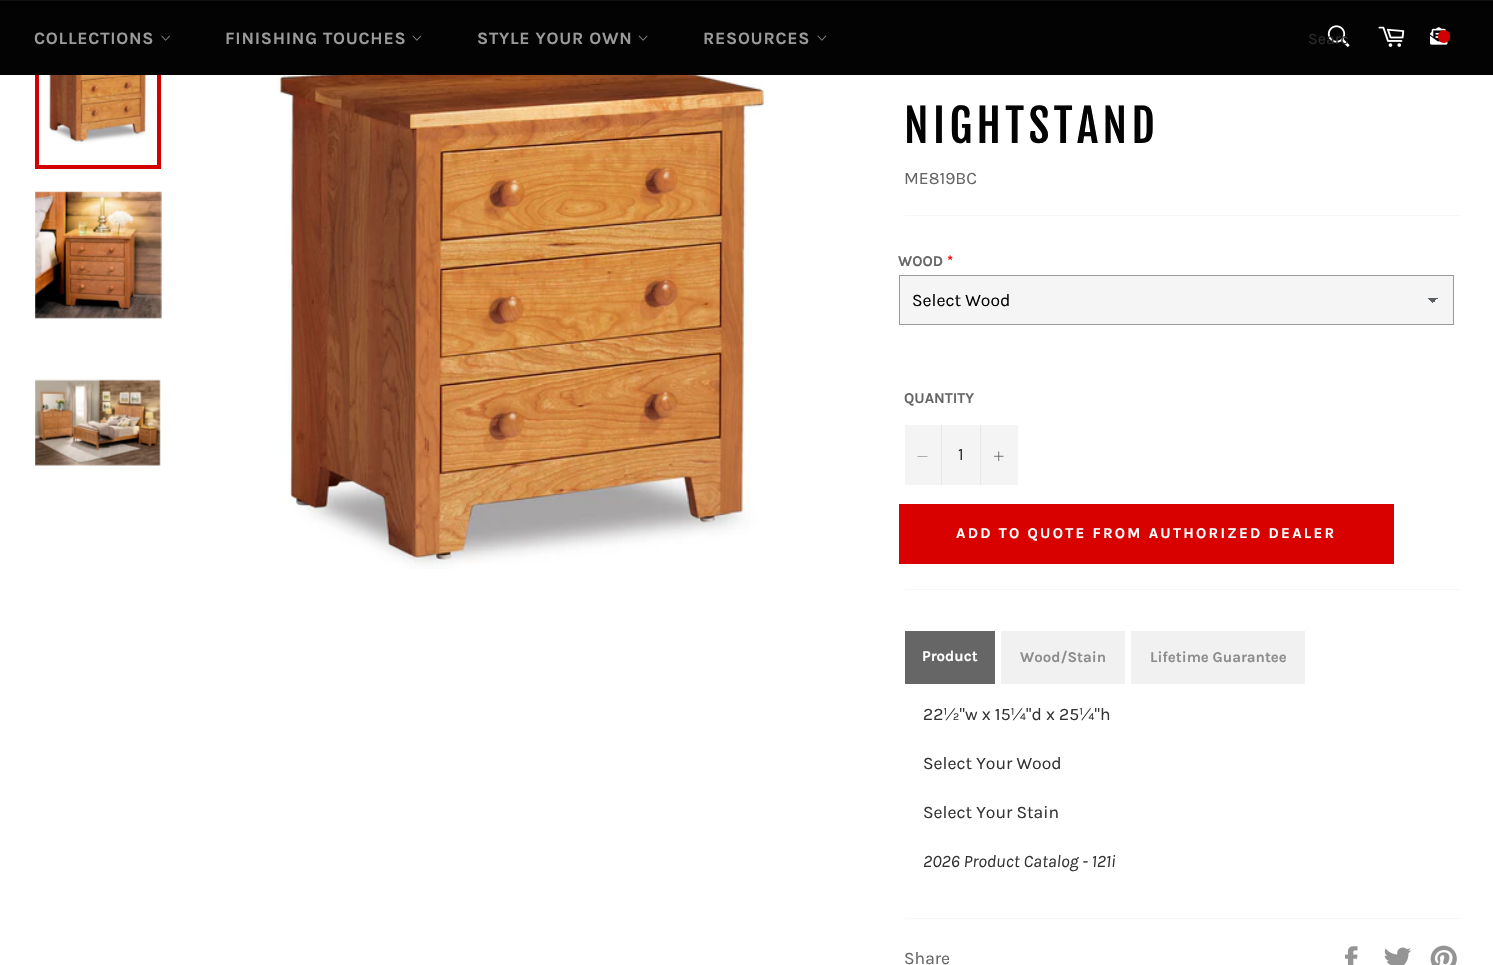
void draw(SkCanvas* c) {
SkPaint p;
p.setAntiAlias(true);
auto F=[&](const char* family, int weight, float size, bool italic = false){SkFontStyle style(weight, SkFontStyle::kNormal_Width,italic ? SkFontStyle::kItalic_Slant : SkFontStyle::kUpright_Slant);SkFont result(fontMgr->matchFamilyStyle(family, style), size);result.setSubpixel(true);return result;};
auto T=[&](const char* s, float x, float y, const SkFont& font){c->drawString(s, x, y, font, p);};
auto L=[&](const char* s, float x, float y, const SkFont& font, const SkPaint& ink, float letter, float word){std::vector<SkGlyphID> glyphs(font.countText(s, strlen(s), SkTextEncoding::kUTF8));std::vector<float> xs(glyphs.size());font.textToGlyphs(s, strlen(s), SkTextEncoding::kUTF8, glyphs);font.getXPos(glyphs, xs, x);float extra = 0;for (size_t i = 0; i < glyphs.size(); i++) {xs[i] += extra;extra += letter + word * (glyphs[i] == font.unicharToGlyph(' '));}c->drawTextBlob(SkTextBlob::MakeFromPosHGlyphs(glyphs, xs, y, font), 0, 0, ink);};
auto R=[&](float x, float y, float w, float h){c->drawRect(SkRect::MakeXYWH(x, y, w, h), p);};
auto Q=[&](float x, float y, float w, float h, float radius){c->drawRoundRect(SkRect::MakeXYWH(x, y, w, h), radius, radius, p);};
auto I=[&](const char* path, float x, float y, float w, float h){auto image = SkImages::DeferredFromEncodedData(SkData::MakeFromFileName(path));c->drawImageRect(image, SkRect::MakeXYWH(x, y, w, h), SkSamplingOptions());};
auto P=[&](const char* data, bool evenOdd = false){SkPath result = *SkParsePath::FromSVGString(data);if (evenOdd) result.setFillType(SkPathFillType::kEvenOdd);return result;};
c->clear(0xffffffff);
I("7.png",47,75,108,69);
p.setStroke(true);
p.setStrokeWidth(4);
p.setColor(0xffd20000);
c->drawRect(SkRect::MakeXYWH(37,8,122,159),p);
p.setStroke(false);
p.setColor(0xff030303);
R(0,1,1493,74);
p.setColor(0xff101010);
R(0,0,1493,1);
auto f1 = F("Karla",700,17.5);
p.setColor(0xff9a9a9a);
L("COLLECTIONS",34,44,f1,p,.75,0);
I("1.png",161,35,9,6);
L("FINISHING TOUCHES",225,44,f1,p,.75,0);
I("2.png",412,35,10,6);
L("STYLE YOUR OWN",477,44,f1,p,.75,0);
I("3.png",638,35,10,6);
L("RESOURCES",703,44,f1,p,.75,0);
I("2.png",817,35,10,6);
I("4.png",1327,25,23,22);
auto f2 = F("Karla",400,16);
p.setColor(0xff2c2c2c);
T("Searc",1308,44,f2);
I("5.png",1378,26,27,21);
I("6.png",1430,27,18,18);
p.setColor(0xffd20000);
Q(1438,30,12,13,6);
I("8.png",35,191,127,128);
I("9.png",35,379,126,87);
I("10.png",278,75,487,494);
auto f3 = F("Fjalla One",400,45);
p.setColor(0xff030303);
L("NIGHTSTAND",904,143,f3,p,4.5,0);
auto f4 = F("Karla",400,17.5);
p.setColor(0xff666666);
T("ME819BC",904,184,f4);
p.setColor(0xfff7f7f7);
R(905,215,555,1);
auto f5 = F("Karla",700,15);
p.setColor(0xff666666);
T("WOOD",898,266,f5);
p.setColor(0xffff0000);
T("*",947,266,f5);
p.setColor(0xfff5f5f5);
c->drawRect(SkRect::MakeXYWH(899.5,275.5,554,49),p);
p.setStroke(true);
p.setStrokeWidth(1);
p.setColor(0xff9a9a9a);
c->drawRect(SkRect::MakeXYWH(899.5,275.5,554,49),p);
p.setStroke(false);
{
const SkColor colors[] = {0xff5c5f62,0xfff5f5f5};
const float stops[] = {.5,.5};
const SkPoint ends[] = {{1433,297}, {1439,303}};
p.setShader(SkGradientShader::MakeLinear(ends, colors, stops, 2, SkTileMode::kClamp));
p.setAlpha(255);
}
R(1433,298,6,4);
{
const SkColor colors[] = {0xfff5f5f5,0xff5c5f62};
const float stops[] = {.5,.5};
const SkPoint ends[] = {{1426,303}, {1433,297}};
p.setShader(SkGradientShader::MakeLinear(ends, colors, stops, 2, SkTileMode::kClamp));
p.setAlpha(255);
}
R(1426,298,7,5);
p.setShader(nullptr);
p.setColor(0xff030303);
T("Select Wood",912,306,f4);
p.setColor(0xff666666);
T("QUANTITY",904,403,f5);
p.setColor(0xfff4f4f4);
R(905,425,113,60);
p.setColor(0xffe7e7e7);
R(941,425,1,60);
p.setColor(0xff666666);
c->drawPath(P("M927.5 456v.5h-10v-.5z",true),p);
p.setColor(0xff333333);
T("1",958,460,f4);
p.setColor(0xffe7e7e7);
R(980,425,1,60);
I("11.png",994,451,10,10);
p.setColor(0xffd90000);
R(899,504,495,60);
p.setColor(0xffffffff);
L("ADD TO QUOTE FROM AUTHORIZED DEALER",956,538,f5,p,2.25,0);
p.setColor(0xfff7f7f7);
R(905,589,555,1);
p.setColor(0xff666666);
R(905,631,90,53);
p.setColor(0xffffffff);
T("Product",922,661,f5);
p.setColor(0xfff1f1f1);
R(1001,631,124,53);
p.setColor(0xff8d8d8d);
T("Wood/Stain",1020,662,f5);
p.setColor(0xfff1f1f1);
R(1131,631,174,53);
p.setColor(0xff8d8d8d);
T("Lifetime Guarantee",1150,662,f5);
p.setColor(0xff333333);
T("22½\"w x 15¼\"d x 25¼\"h",923,720,f4);
T("Select Your Wood",923,769,f4);
T("Select Your Stain",923,818,f4);
auto f6 = F("Karla",400,17.5,true);
T("2026 Product Catalog - 121i",923,867,f6);
p.setColor(0xfff7f7f7);
R(905,918,555,1);
p.setColor(0xff666666);
T("Share",904,964,f4);
I("12.png",1345,946,13,19);
I("13.png",1384,947,28,18);
I("14.png",1430,945,27,20);
}
